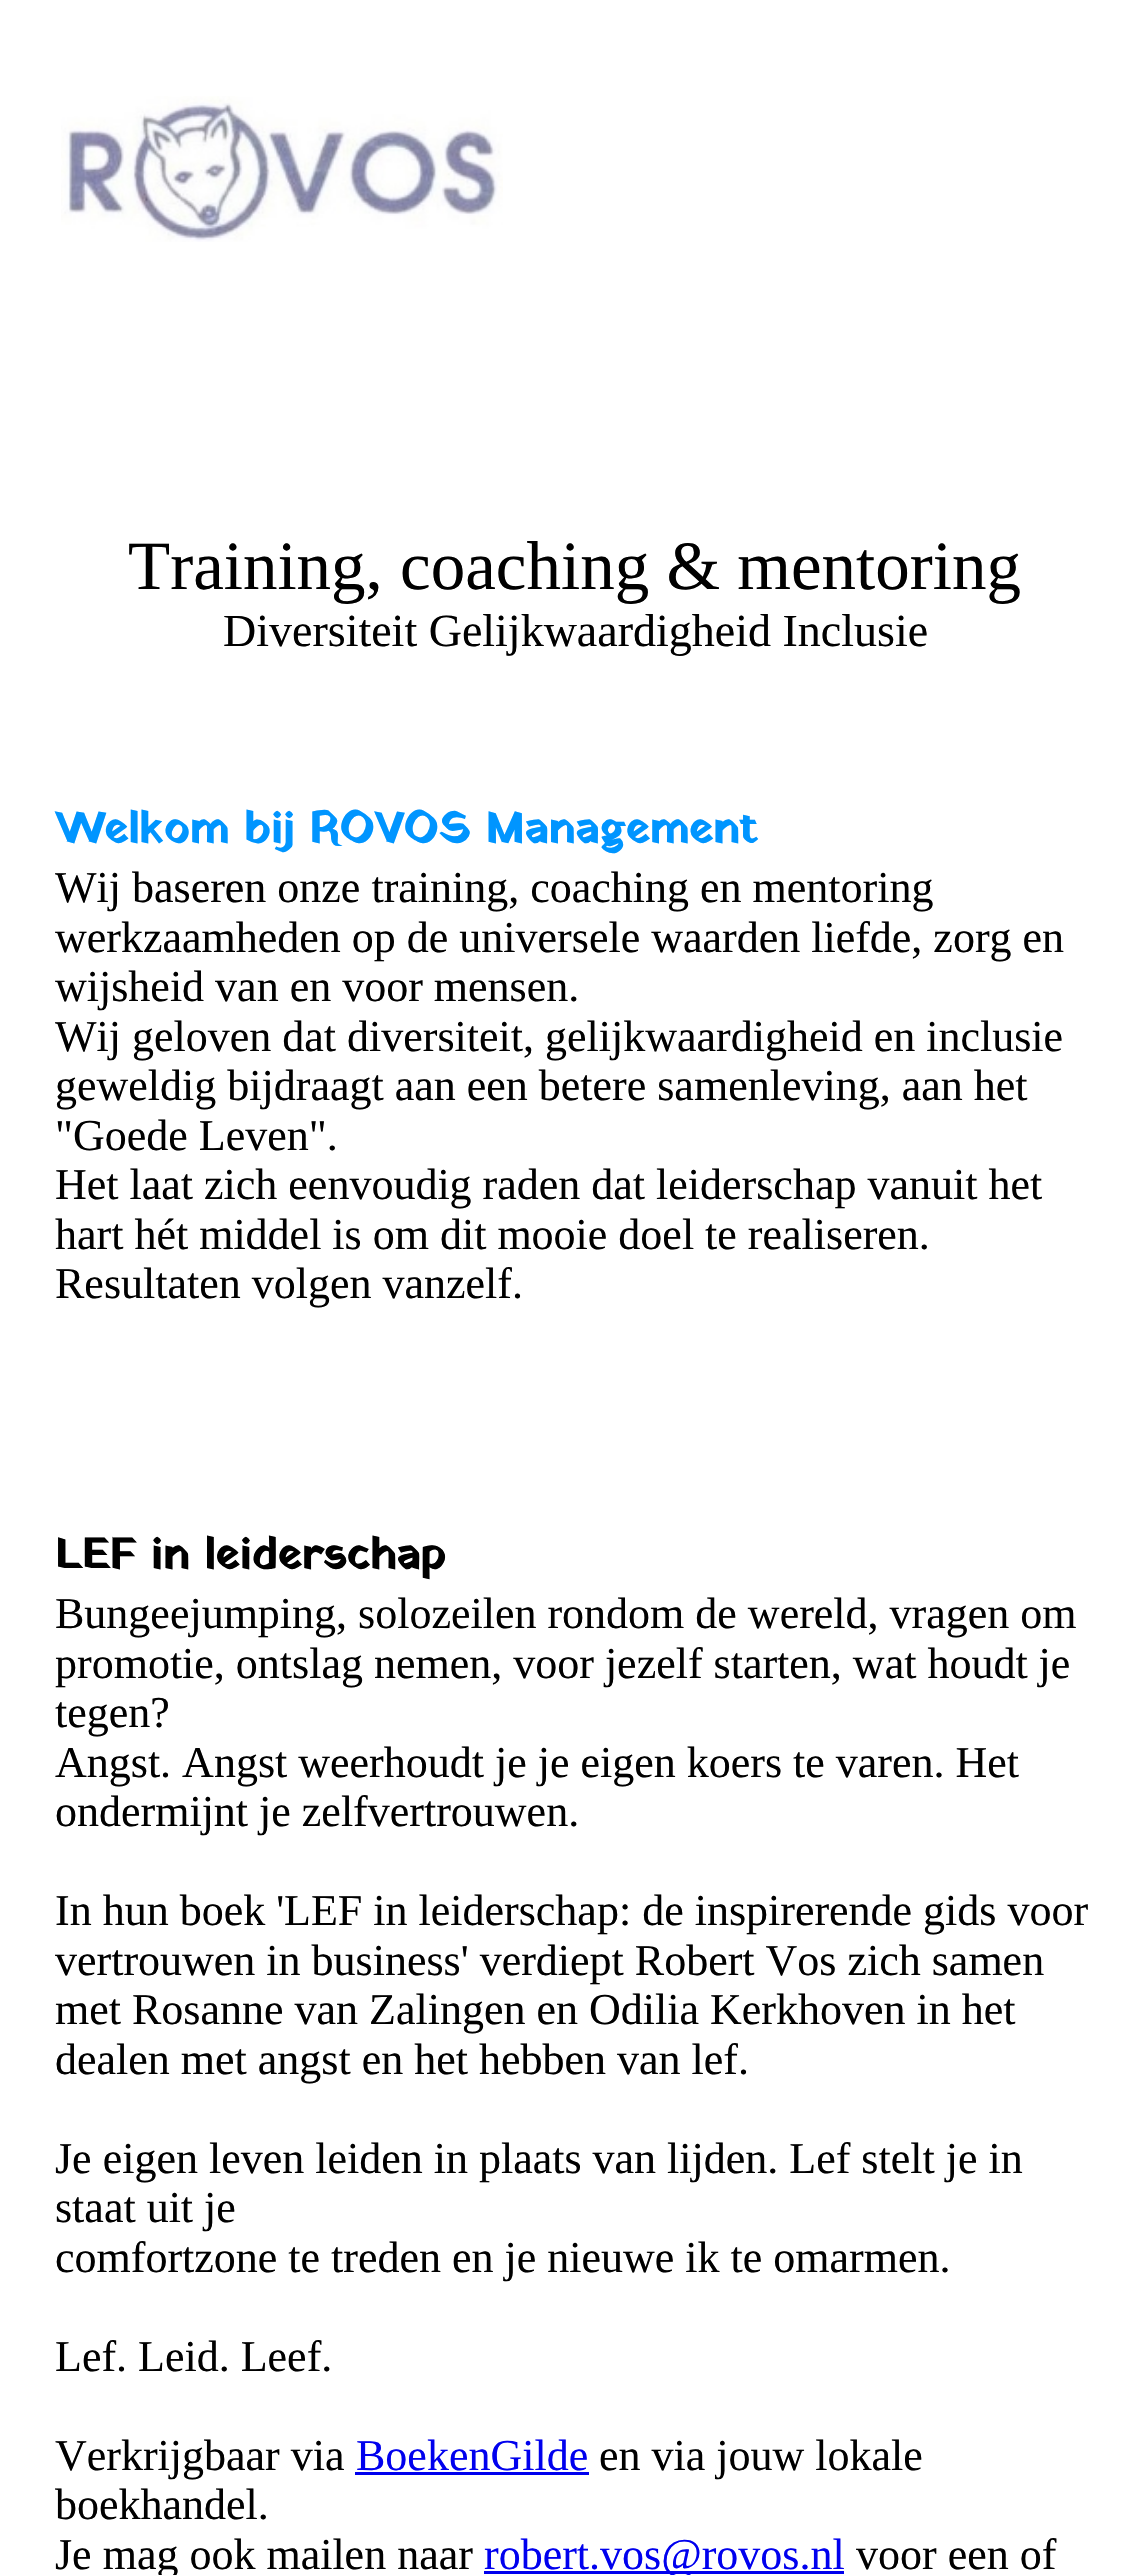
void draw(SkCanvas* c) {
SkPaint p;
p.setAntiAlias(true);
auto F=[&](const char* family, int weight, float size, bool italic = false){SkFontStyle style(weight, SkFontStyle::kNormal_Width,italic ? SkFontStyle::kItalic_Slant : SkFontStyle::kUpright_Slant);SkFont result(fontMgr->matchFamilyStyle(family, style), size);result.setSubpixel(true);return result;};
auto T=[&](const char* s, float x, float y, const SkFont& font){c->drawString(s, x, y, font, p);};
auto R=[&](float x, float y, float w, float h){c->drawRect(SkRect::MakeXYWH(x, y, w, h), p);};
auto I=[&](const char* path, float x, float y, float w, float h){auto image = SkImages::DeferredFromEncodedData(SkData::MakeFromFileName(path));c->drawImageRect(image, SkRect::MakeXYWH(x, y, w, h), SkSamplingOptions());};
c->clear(0xffffffff);
I("1.png",61,96,442,146);
auto f1 = F("Liberation Serif",400,69);
p.setColor(0xff000000);
T("Training, coaching & mentoring",128,589,f1);
auto f2 = F("Liberation Serif",400,46);
T("Diversiteit Gelijkwaardigheid Inclusie",223,646,f2);
auto f3 = F("Yatra One",700,44);
p.setColor(0xff0095ff);
T("Welkom bij ROVOS Management",55,842,f3);
auto f4 = F("Liberation Serif",400,44);
p.setColor(0xff000000);
T("Wij baseren onze training, coaching en mentoring",55,902,f4);
T("werkzaamheden op de universele waarden liefde, zorg en",55,952,f4);
T("wijsheid van en voor mensen.",55,1001,f4);
T("Wij geloven dat diversiteit, gelijkwaardigheid en inclusie",55,1051,f4);
T("geweldig bijdraagt aan een betere samenleving, aan het",55,1100,f4);
T("\"Goede Leven\".",55,1150,f4);
T("Het laat zich eenvoudig raden dat leiderschap vanuit het",55,1199,f4);
T("hart hét middel is om dit mooie doel te realiseren.",55,1249,f4);
T("Resultaten volgen vanzelf.",55,1298,f4);
T("LEF in leiderschap",55,1568,f3);
T("Bungeejumping, solozeilen rondom de wereld, vragen om",55,1628,f4);
T("promotie, ontslag nemen, voor jezelf starten, wat houdt je",55,1678,f4);
T("tegen?",55,1727,f4);
T("Angst. Angst weerhoudt je je eigen koers te varen. Het",55,1777,f4);
T("ondermijnt je zelfvertrouwen.",55,1826,f4);
T("In hun boek 'LEF in leiderschap: de inspirerende gids voor",55,1925,f4);
T("vertrouwen in business' verdiept Robert Vos zich samen",55,1975,f4);
T("met Rosanne van Zalingen en Odilia Kerkhoven in het",55,2024,f4);
T("dealen met angst en het hebben van lef.",55,2074,f4);
T("Je eigen leven leiden in plaats van lijden. Lef stelt je in",55,2173,f4);
T("staat uit je",55,2222,f4);
T("comfortzone te treden en je nieuwe ik te omarmen.",55,2272,f4);
T("Lef. Leid. Leef.",55,2371,f4);
T("Verkrijgbaar via",55,2470,f4);
p.setColor(0xff0000ee);
T("BoekenGilde",356,2470,f4);
R(355,2472,234,3);
p.setColor(0xff000000);
T("en via jouw lokale",599,2470,f4);
T("boekhandel.",55,2519,f4);
T("Je mag ook mailen naar",55,2569,f4);
p.setColor(0xff0000ee);
R(484,2571,360,3);
T("robert.vos@rovos.nl",484,2569,f4);
p.setColor(0xff000000);
T("voor een of",856,2569,f4);
}
